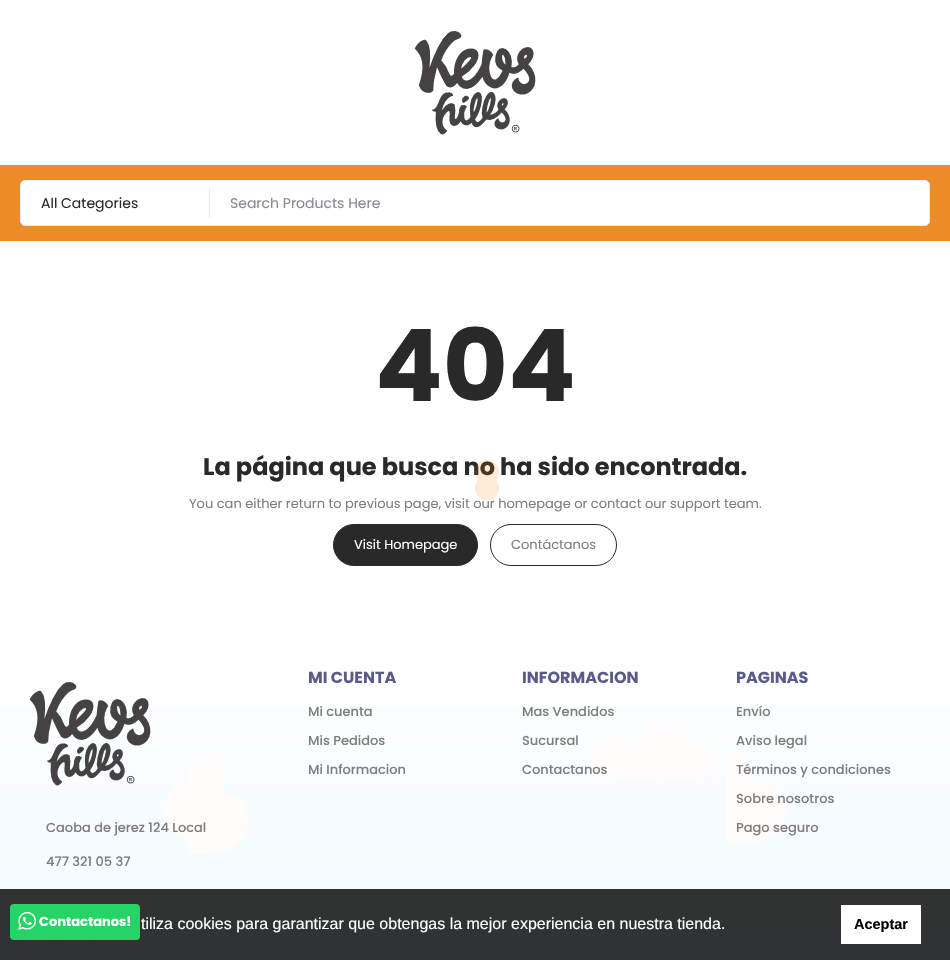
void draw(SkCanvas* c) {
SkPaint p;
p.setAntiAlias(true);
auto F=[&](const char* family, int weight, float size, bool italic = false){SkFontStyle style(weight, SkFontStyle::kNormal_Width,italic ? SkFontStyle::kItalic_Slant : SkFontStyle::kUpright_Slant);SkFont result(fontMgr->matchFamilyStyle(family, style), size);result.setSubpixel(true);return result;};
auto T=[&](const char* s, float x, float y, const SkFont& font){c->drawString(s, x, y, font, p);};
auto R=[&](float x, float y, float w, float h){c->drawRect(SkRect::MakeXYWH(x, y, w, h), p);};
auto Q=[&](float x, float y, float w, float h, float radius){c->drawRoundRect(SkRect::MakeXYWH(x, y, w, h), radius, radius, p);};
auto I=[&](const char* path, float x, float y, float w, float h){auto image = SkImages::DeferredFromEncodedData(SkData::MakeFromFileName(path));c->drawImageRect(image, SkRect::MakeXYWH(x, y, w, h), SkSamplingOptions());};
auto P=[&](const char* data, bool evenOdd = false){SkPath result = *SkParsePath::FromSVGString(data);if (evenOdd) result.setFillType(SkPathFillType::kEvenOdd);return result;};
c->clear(0xffffffff);
I("1.png",414,31,122,104);
p.setColor(0xffed8b29);
R(0,165,950,76);
p.setColor(0xffffffff);
c->drawRoundRect(SkRect::MakeXYWH(20.5,180.5,909,45),4.5,4.5,p);
p.setStroke(true);
p.setStrokeWidth(1);
p.setColor(0xffe9e9e9);
c->drawRoundRect(SkRect::MakeXYWH(20.5,180.5,909,45),4.5,4.5,p);
auto f1 = F("Poppins",400,14);
p.setStroke(false);
p.setColor(0xff292929);
T("All Categories",41,208,f1);
p.setColor(0xffe9e9e9);
R(209,188,1,30);
p.setColor(0xff848b92);
T("Search Products Here",230,208,f1);
p.setColor(0xffffffff);
c->drawPath(P("M890 181h35c2 0 4 2 4 4v36c0 2-2 4-4 4h-35z"),p);
auto f2 = F("Poppins",700,100);
p.setColor(0xff292929);
T("404",375,401,f2);
auto f3 = F("Poppins",700,24);
T("La página que busca no ha sido encontrada.",203,475,f3);
auto f4 = F("Poppins",400,13);
p.setColor(0xff7e7e7e);
T("You can either return to previous page, visit our homepage or contact our support team.",189,508,f4);
p.setColor(0xff292929);
c->drawRoundRect(SkRect::MakeXYWH(333.5,524.5,144,41),20.5,20.5,p);
p.setStroke(true);
c->drawRoundRect(SkRect::MakeXYWH(333.5,524.5,144,41),20.5,20.5,p);
p.setStroke(false);
p.setColor(0xffffffff);
T("Visit Homepage",354,549,f4);
p.setStroke(true);
p.setColor(0xff292929);
c->drawRoundRect(SkRect::MakeXYWH(490.5,524.5,126,41),20.5,20.5,p);
p.setStroke(false);
p.setColor(0xff7e7e7e);
T("Contáctanos",511,549,f4);
I("2.png",0,706,950,254);
auto f5 = F("Poppins",700,16);
p.setColor(0xff595c89);
T("MI CUENTA",308,683,f5);
auto f6 = F("Poppins",500,13);
p.setColor(0xff7e7e7e);
T("Mi cuenta",308,716,f6);
T("Mis Pedidos",308,745,f6);
T("Mi Informacion",308,774,f6);
p.setColor(0xff595c89);
T("INFORMACION",522,683,f5);
p.setColor(0xff7e7e7e);
T("Mas Vendidos",522,716,f6);
T("Sucursal",522,745,f6);
T("Contactanos",522,774,f6);
p.setColor(0xff595c89);
T("PAGINAS",736,683,f5);
p.setColor(0xff7e7e7e);
T("Envío",736,716,f6);
T("Aviso legal",736,745,f6);
T("Términos y condiciones",736,774,f6);
T("Sobre nosotros",736,803,f6);
T("Pago seguro",736,832,f6);
I("3.png",29,682,122,104);
T("Caoba de jerez 124 Local",46,832,f6);
T("477 321 05 37",46,866,f6);
p.setStroke(true);
p.setColor(0xffe9e9e9);
c->drawCircle(37,940,16.5,p);
c->drawCircle(76,940,16.5,p);
p.setStroke(false);
p.setColor(0x29ff8100);
c->drawCircle(487,472,12,p);
p.setColor(0xffffebd6);
c->drawCircle(487,488,12,p);
p.setColor(0xcc000000);
R(0,889,950,71);
p.setColor(0xff25d366);
Q(10,904,130,36,4);
I("4.png",18,912,18,18);
auto f7 = F("Poppins",700,13);
p.setColor(0xffffffff);
T("Contactanos!",39,926,f7);
auto f8 = F("Liberation Sans",400,16);
T("tiliza cookies para garantizar que obtengas la mejor experiencia en nuestra tienda.",141,929,f8);
R(841,905,80,39);
auto f9 = F("Liberation Sans",700,14.5);
p.setColor(0xff000000);
T("Aceptar",854,929,f9);
}
